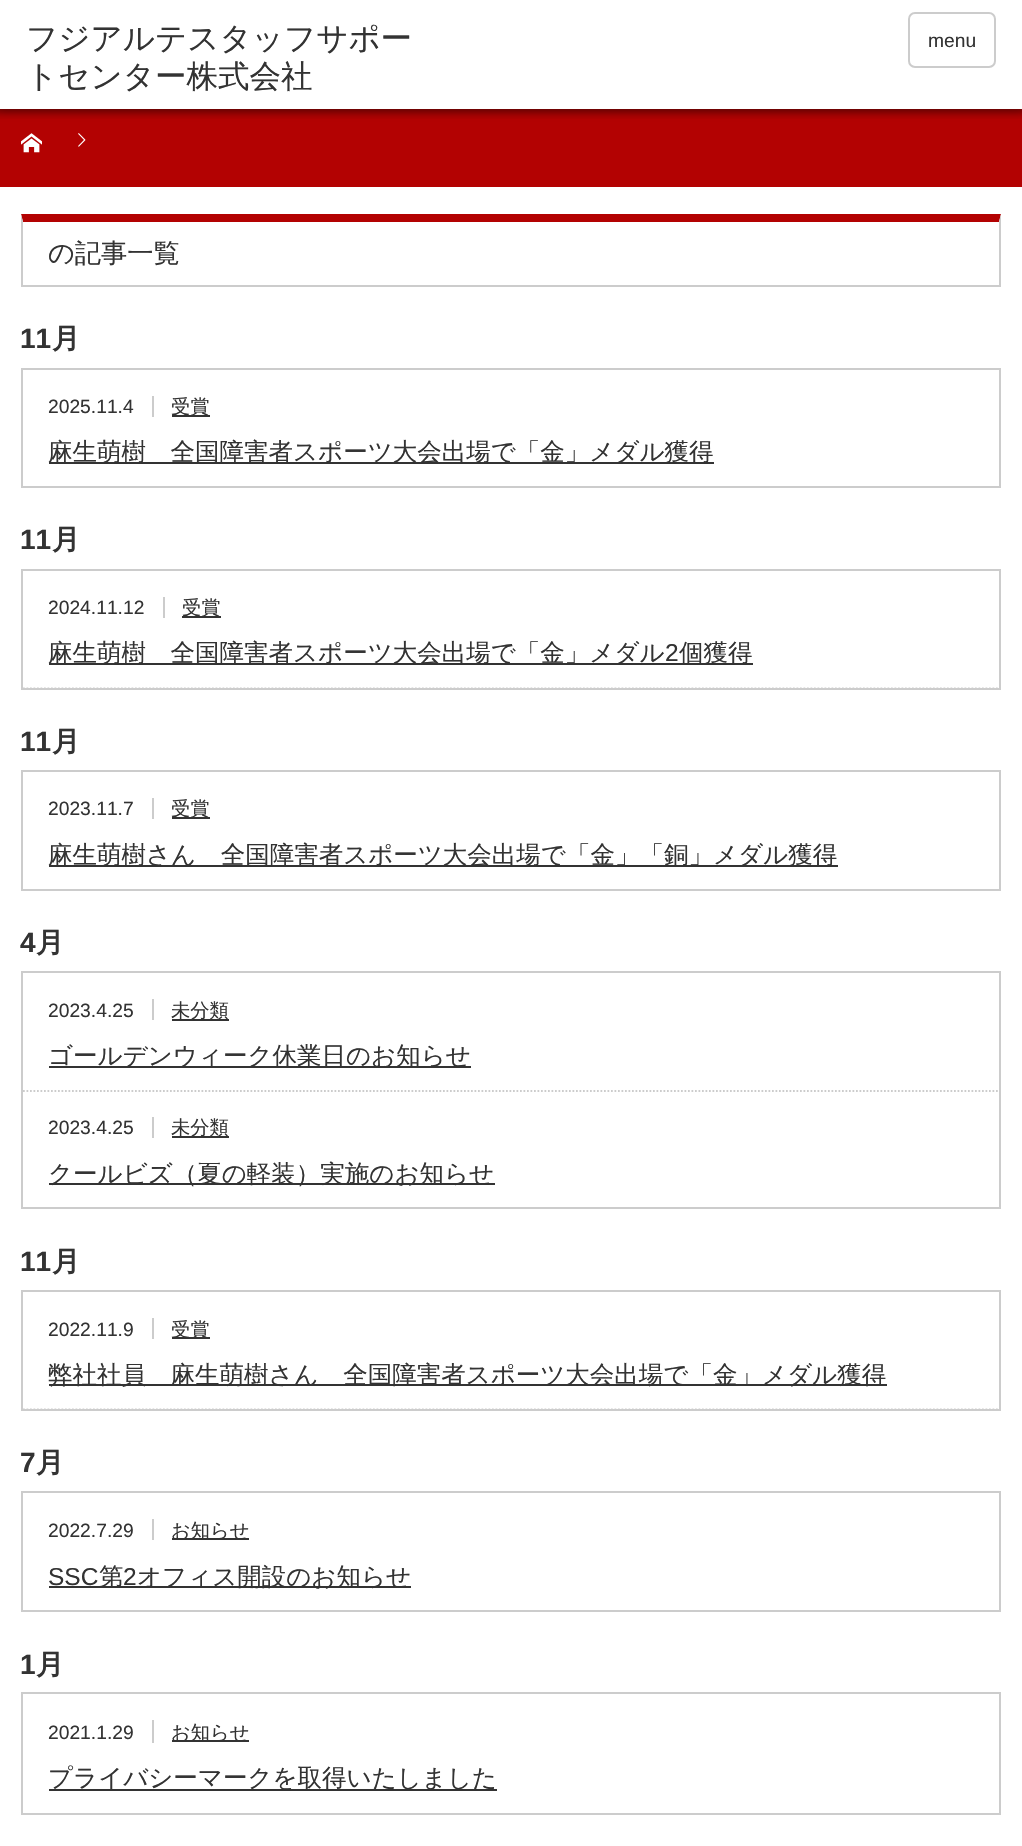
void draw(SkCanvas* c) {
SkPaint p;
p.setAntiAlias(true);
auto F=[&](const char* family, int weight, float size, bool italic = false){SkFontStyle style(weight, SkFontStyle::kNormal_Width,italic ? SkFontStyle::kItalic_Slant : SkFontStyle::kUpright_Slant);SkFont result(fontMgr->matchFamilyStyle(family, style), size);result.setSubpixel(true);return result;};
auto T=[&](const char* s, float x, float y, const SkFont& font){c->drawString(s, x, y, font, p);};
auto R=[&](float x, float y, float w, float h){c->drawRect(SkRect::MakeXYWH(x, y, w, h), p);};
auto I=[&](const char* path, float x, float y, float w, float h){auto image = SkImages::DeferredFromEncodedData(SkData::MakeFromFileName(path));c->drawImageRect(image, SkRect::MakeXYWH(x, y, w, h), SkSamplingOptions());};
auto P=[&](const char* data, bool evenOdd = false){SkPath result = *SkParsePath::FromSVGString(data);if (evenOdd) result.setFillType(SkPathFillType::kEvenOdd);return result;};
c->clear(0xffffffff);
p.setColor(0xffb30202);
R(0,109,1022,78);
I("1.png",0,109,1022,10);
p.setColor(0x4d000000);
p.setMaskFilter(SkMaskFilter::MakeBlur(kNormal_SkBlurStyle, 4.5));
c->drawRect(SkRect::MakeXYWH(0,0,1022,109),p);
p.setMaskFilter(nullptr);
p.setColor(0xffffffff);
R(0,0,1022,109);
auto f1 = F("WenQuanYi Zen Hei",500,31.5);
p.setColor(0xff333333);
T("フジアルテスタッフサポー",26,49,f1);
T("トセンター株式会社",26,87,f1);
p.setStroke(true);
p.setStrokeWidth(2);
p.setColor(0xffcccccc);
c->drawRoundRect(SkRect::MakeXYWH(909,13,86,54),6,6,p);
auto f2 = F("Liberation Sans",400,19.25);
p.setStroke(false);
p.setColor(0xff333333);
T("menu",928,47,f2);
I("2.png",21,133,21,20);
I("3.png",78,133,8,14);
p.setColor(0xffb30202);
c->drawPath(P("M21 214h980l-2 8h-976z"),p);
p.setColor(0xffcccccc);
c->drawPath(P("M1001 214v73l-2-2v-63z"),p);
R(21,285,980,2);
c->drawPath(P("M21 287v-73l2 8v63z"),p);
auto f3 = F("WenQuanYi Zen Hei",500,26.25);
p.setColor(0xff333333);
T("の記事一覧",48,262,f3);
auto f4 = F("Liberation Sans",700,28);
T("11",20,348,f4);
auto f5 = F("WenQuanYi Zen Hei",700,28);
T("月",52,348,f5);
p.setStroke(true);
p.setColor(0xffcccccc);
c->drawRect(SkRect::MakeXYWH(22,369,978,118),p);
p.setStroke(false);
R(152,396,2,21);
p.setColor(0xff333333);
T("2025.11.4",48,413,f2);
R(172,415,38,2);
auto f6 = F("WenQuanYi Zen Hei",500,19.25);
T("受賞",171,413,f6);
R(49,462,665,2);
auto f7 = F("WenQuanYi Zen Hei",500,24.5);
T("麻生萌樹　全国障害者スポーツ大会出場で「金」メダル獲得",48,460,f7);
T("11",20,549,f4);
T("月",52,549,f5);
p.setStroke(true);
p.setColor(0xffcccccc);
c->drawRect(SkRect::MakeXYWH(22,570,978,119),p);
c->save();
c->clipRect(SkRect::MakeXYWH(23,571,976,117));
p.setStrokeWidth(1.8);
p.setPathEffect(SkDashPathEffect::Make({{1.75f,1.75f}}, 0));
c->drawPath(P("M23 688.5h976"),p);
p.setPathEffect(nullptr);
c->restore();
p.setStroke(false);
R(163,597,2,21);
p.setColor(0xff333333);
T("2024.11.12",48,614,f2);
R(182,616,39,2);
T("受賞",182,614,f6);
R(49,663,704,2);
T("麻生萌樹　全国障害者スポーツ大会出場で「金」メダル",48,661,f7);
auto f8 = F("Liberation Sans",400,24.5);
T("2",665,661,f8);
T("個獲得",679,661,f7);
T("11",20,751,f4);
T("月",52,751,f5);
p.setStroke(true);
p.setStrokeWidth(2);
p.setColor(0xffcccccc);
c->drawRect(SkRect::MakeXYWH(22,771,978,119),p);
p.setStroke(false);
R(152,798,2,21);
p.setColor(0xff333333);
T("2023.11.7",48,815,f2);
R(172,817,38,2);
T("受賞",171,815,f6);
R(49,865,789,2);
T("麻生萌樹さん　全国障害者スポーツ大会出場で「金」「銅」メダル獲得",48,863,f7);
T("4",20,952,f4);
T("月",36,952,f5);
p.setStroke(true);
p.setColor(0xffcccccc);
c->drawRect(SkRect::MakeXYWH(22,972,978,236),p);
p.setStrokeWidth(1.8);
p.setPathEffect(SkDashPathEffect::Make({{1.75f,1.75f}}, 0));
c->drawPath(P("M23 1091h976"),p);
p.setPathEffect(nullptr);
p.setStroke(false);
R(152,999,2,21);
p.setColor(0xff333333);
T("2023.4.25",48,1017,f2);
R(172,1019,57,2);
T("未分類",171,1017,f6);
R(49,1066,422,2);
T("ゴールデンウィーク休業日のお知らせ",48,1064,f7);
p.setColor(0xffcccccc);
R(152,1117,2,21);
p.setColor(0xff333333);
T("2023.4.25",48,1134,f2);
R(172,1136,57,2);
T("未分類",171,1134,f6);
R(49,1183,446,2);
T("クールビズ（夏の軽装）実施のお知らせ",48,1182,f7);
T("11",20,1271,f4);
T("月",52,1271,f5);
p.setStroke(true);
p.setStrokeWidth(2);
p.setColor(0xffcccccc);
c->drawRect(SkRect::MakeXYWH(22,1291,978,119),p);
c->save();
c->clipRect(SkRect::MakeXYWH(23,1292,976,117));
p.setStrokeWidth(1.8);
p.setPathEffect(SkDashPathEffect::Make({{1.75f,1.75f}}, 0));
c->drawPath(P("M23 1409.5h976"),p);
p.setPathEffect(nullptr);
c->restore();
p.setStroke(false);
R(152,1318,2,21);
p.setColor(0xff333333);
T("2022.11.9",48,1336,f2);
R(172,1337,38,2);
T("受賞",171,1336,f6);
R(49,1384,838,2);
T("弊社社員　麻生萌樹さん　全国障害者スポーツ大会出場で「金」メダル獲得",48,1383,f7);
T("7",20,1472,f4);
T("月",36,1472,f5);
p.setStroke(true);
p.setStrokeWidth(2);
p.setColor(0xffcccccc);
c->drawRect(SkRect::MakeXYWH(22,1492,978,119),p);
p.setStroke(false);
R(152,1519,2,21);
p.setColor(0xff333333);
T("2022.7.29",48,1537,f2);
R(172,1538,77,2);
T("お知らせ",171,1537,f6);
T("SSC",48,1585,f8);
R(49,1586,362,2);
T("第",99,1585,f7);
T("2",123,1585,f8);
T("オフィス開設のお知らせ",137,1585,f7);
T("1",20,1674,f4);
T("月",36,1674,f5);
p.setStroke(true);
p.setColor(0xffcccccc);
c->drawRect(SkRect::MakeXYWH(22,1693,978,121),p);
p.setStroke(false);
R(152,1720,2,23);
p.setColor(0xff333333);
T("2021.1.29",48,1739,f2);
R(172,1740,77,2);
T("お知らせ",171,1739,f6);
R(49,1789,448,2);
T("プライバシーマークを取得いたしました",48,1786,f7);
}
